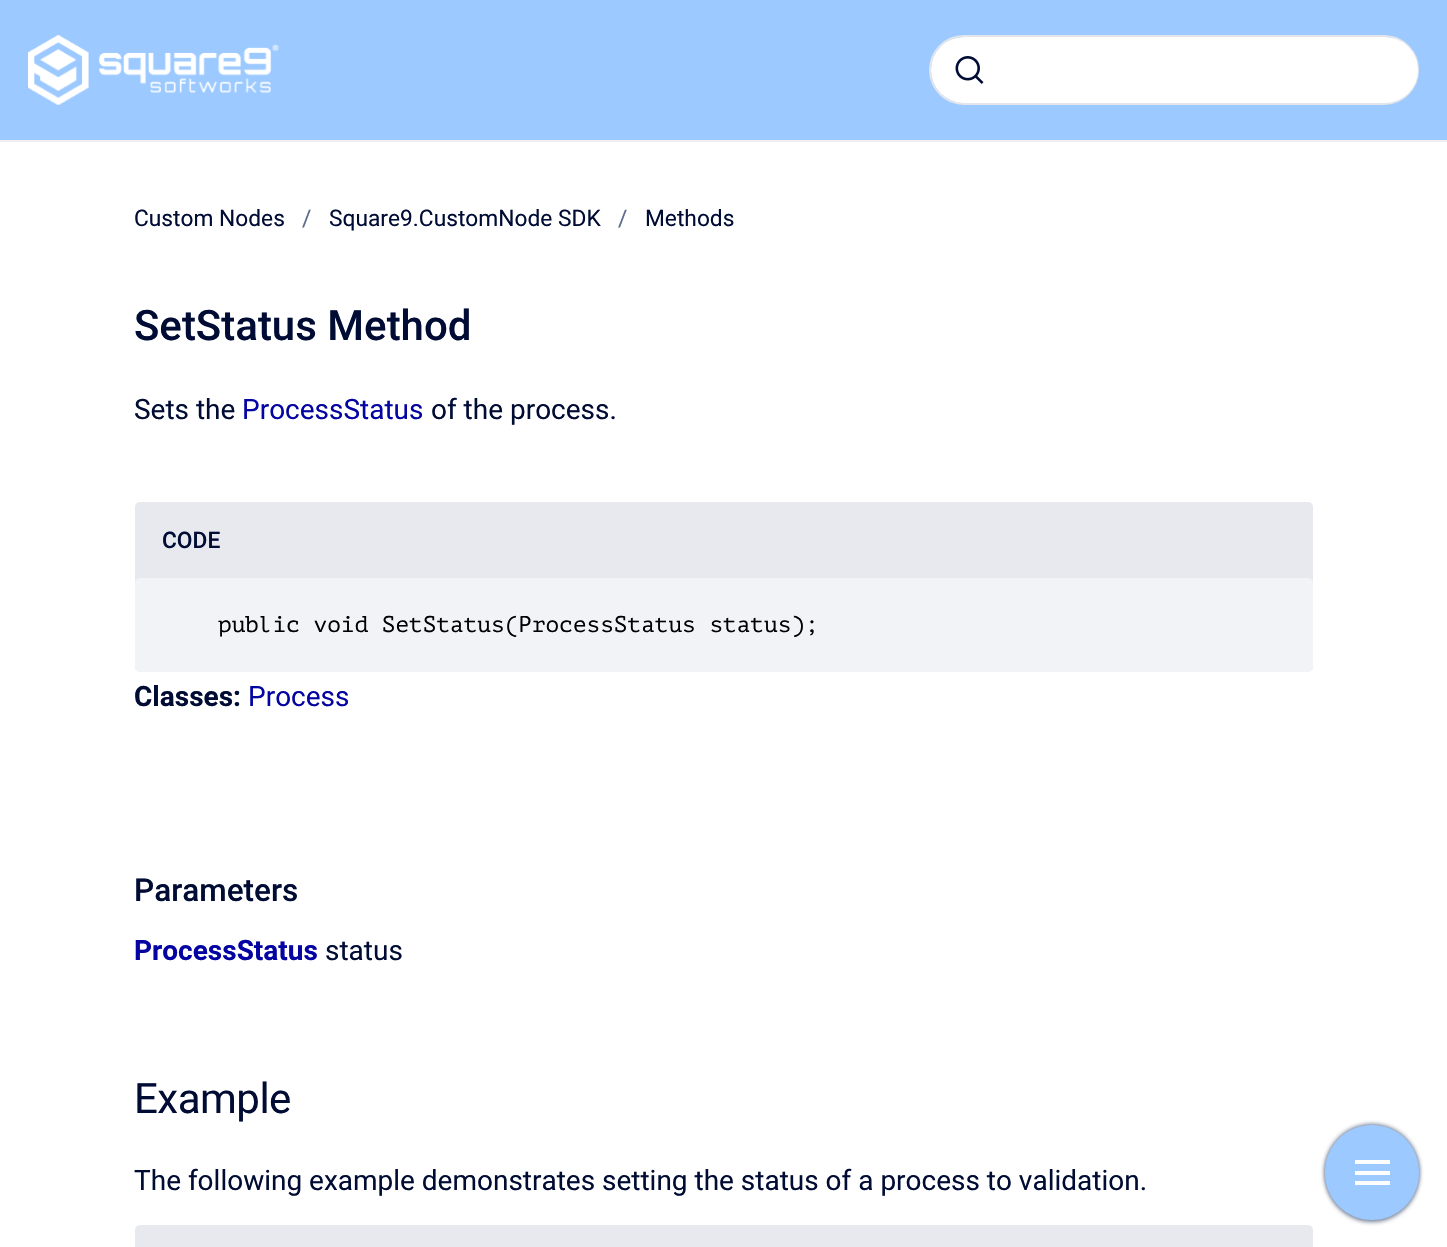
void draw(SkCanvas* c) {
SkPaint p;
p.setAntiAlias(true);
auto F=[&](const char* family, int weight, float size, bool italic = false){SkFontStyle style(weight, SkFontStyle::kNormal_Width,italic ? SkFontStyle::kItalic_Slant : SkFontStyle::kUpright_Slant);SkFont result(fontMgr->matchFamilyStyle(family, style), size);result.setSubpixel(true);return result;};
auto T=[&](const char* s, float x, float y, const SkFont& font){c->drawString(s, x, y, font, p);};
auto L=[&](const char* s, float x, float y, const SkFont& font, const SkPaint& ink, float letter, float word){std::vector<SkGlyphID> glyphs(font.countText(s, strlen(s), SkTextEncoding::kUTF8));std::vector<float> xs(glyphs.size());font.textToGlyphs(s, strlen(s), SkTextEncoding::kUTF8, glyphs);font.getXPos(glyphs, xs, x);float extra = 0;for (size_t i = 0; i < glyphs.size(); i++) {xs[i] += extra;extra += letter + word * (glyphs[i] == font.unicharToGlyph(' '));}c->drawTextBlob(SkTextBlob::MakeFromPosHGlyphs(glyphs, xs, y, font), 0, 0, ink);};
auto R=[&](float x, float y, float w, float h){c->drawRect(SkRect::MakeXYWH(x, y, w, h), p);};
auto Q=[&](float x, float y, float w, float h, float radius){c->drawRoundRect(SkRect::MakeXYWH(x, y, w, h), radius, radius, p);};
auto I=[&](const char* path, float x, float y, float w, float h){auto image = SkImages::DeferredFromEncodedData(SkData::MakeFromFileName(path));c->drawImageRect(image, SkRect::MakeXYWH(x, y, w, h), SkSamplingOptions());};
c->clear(0xffffffff);
p.setColor(0xff9cc9ff);
R(0,0,1447,140);
p.setColor(0xffeff0f4);
R(0,140,1447,2);
I("1.png",28,35,251,70);
p.setStroke(true);
p.setStrokeWidth(2);
p.setColor(0xffe2e5eb);
c->drawRoundRect(SkRect::MakeXYWH(930,36,488,68),34,34,p);
p.setStroke(false);
p.setColor(0xffffffff);
Q(931,37,487,66,33);
I("2.png",955,56,29,28);
auto f1 = F("Roboto",400,22.75);
p.setColor(0xff000c34);
T("Custom Nodes",134,226,f1);
p.setColor(0xff5d6b8f);
T("/",302,226,f1);
p.setColor(0xff000c34);
T("Square9.CustomNode SDK",329,226,f1);
p.setColor(0xff5d6b8f);
T("/",618,226,f1);
p.setColor(0xff000c34);
T("Methods",645,226,f1);
auto f2 = F("Roboto",500,42);
T("SetStatus Method",134,340,f2);
auto f3 = F("Roboto",400,28);
T("Sets the",134,419,f3);
p.setColor(0xff0404a3);
T("ProcessStatus",242,419,f3);
p.setColor(0xff000c34);
T("of the process.",431,419,f3);
p.setColor(0xffe8e9ee);
Q(135,502,1178,170,5);
auto f4 = F("Roboto",500,22.75);
p.setColor(0xff000c34);
T("CODE",162,548,f4);
p.setColor(0xfff2f3f7);
Q(135,578,1178,94,5);
auto f5 = F("PT Mono",400,22.75);
p.setColor(0xff000000);
T("public void SetStatus(ProcessStatus status);",218,632,f5);
auto f6 = F("Roboto",700,28);
p.setColor(0xff000c34);
T("Classes:",134,706,f6);
p.setColor(0xff0404a3);
T("Process",248,706,f3);
auto f7 = F("Roboto",500,31.5);
p.setColor(0xff000c34);
T("Parameters",134,901,f7);
p.setColor(0xff0404a3);
T("ProcessStatus",134,960,f6);
p.setColor(0xff000c34);
T("status",325,960,f3);
auto f8 = F("Roboto",400,42);
L("Example",134,1113,f8,p,-.5,0);
T("The following example demonstrates setting the status of a process to validation.",134,1190,f3);
p.setColor(0xffe8e9ee);
Q(135,1225,1178,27,5);
p.setColor(0xff7a869a);
p.setMaskFilter(SkMaskFilter::MakeBlur(kNormal_SkBlurStyle, 2));
c->drawRoundRect(SkRect::MakeXYWH(1325,1124,94,94),47,47,p);
p.setMaskFilter(nullptr);
p.setMaskFilter(SkMaskFilter::MakeBlur(kNormal_SkBlurStyle, 2));
c->drawRoundRect(SkRect::MakeXYWH(1325,1127,94,95),47,47,p);
p.setMaskFilter(nullptr);
p.setColor(0xff9cc9ff);
Q(1325,1125,94,95,47);
p.setColor(0xffffffff);
R(1355,1160,35,4);
R(1355,1171,35,4);
R(1355,1181,35,4);
}
